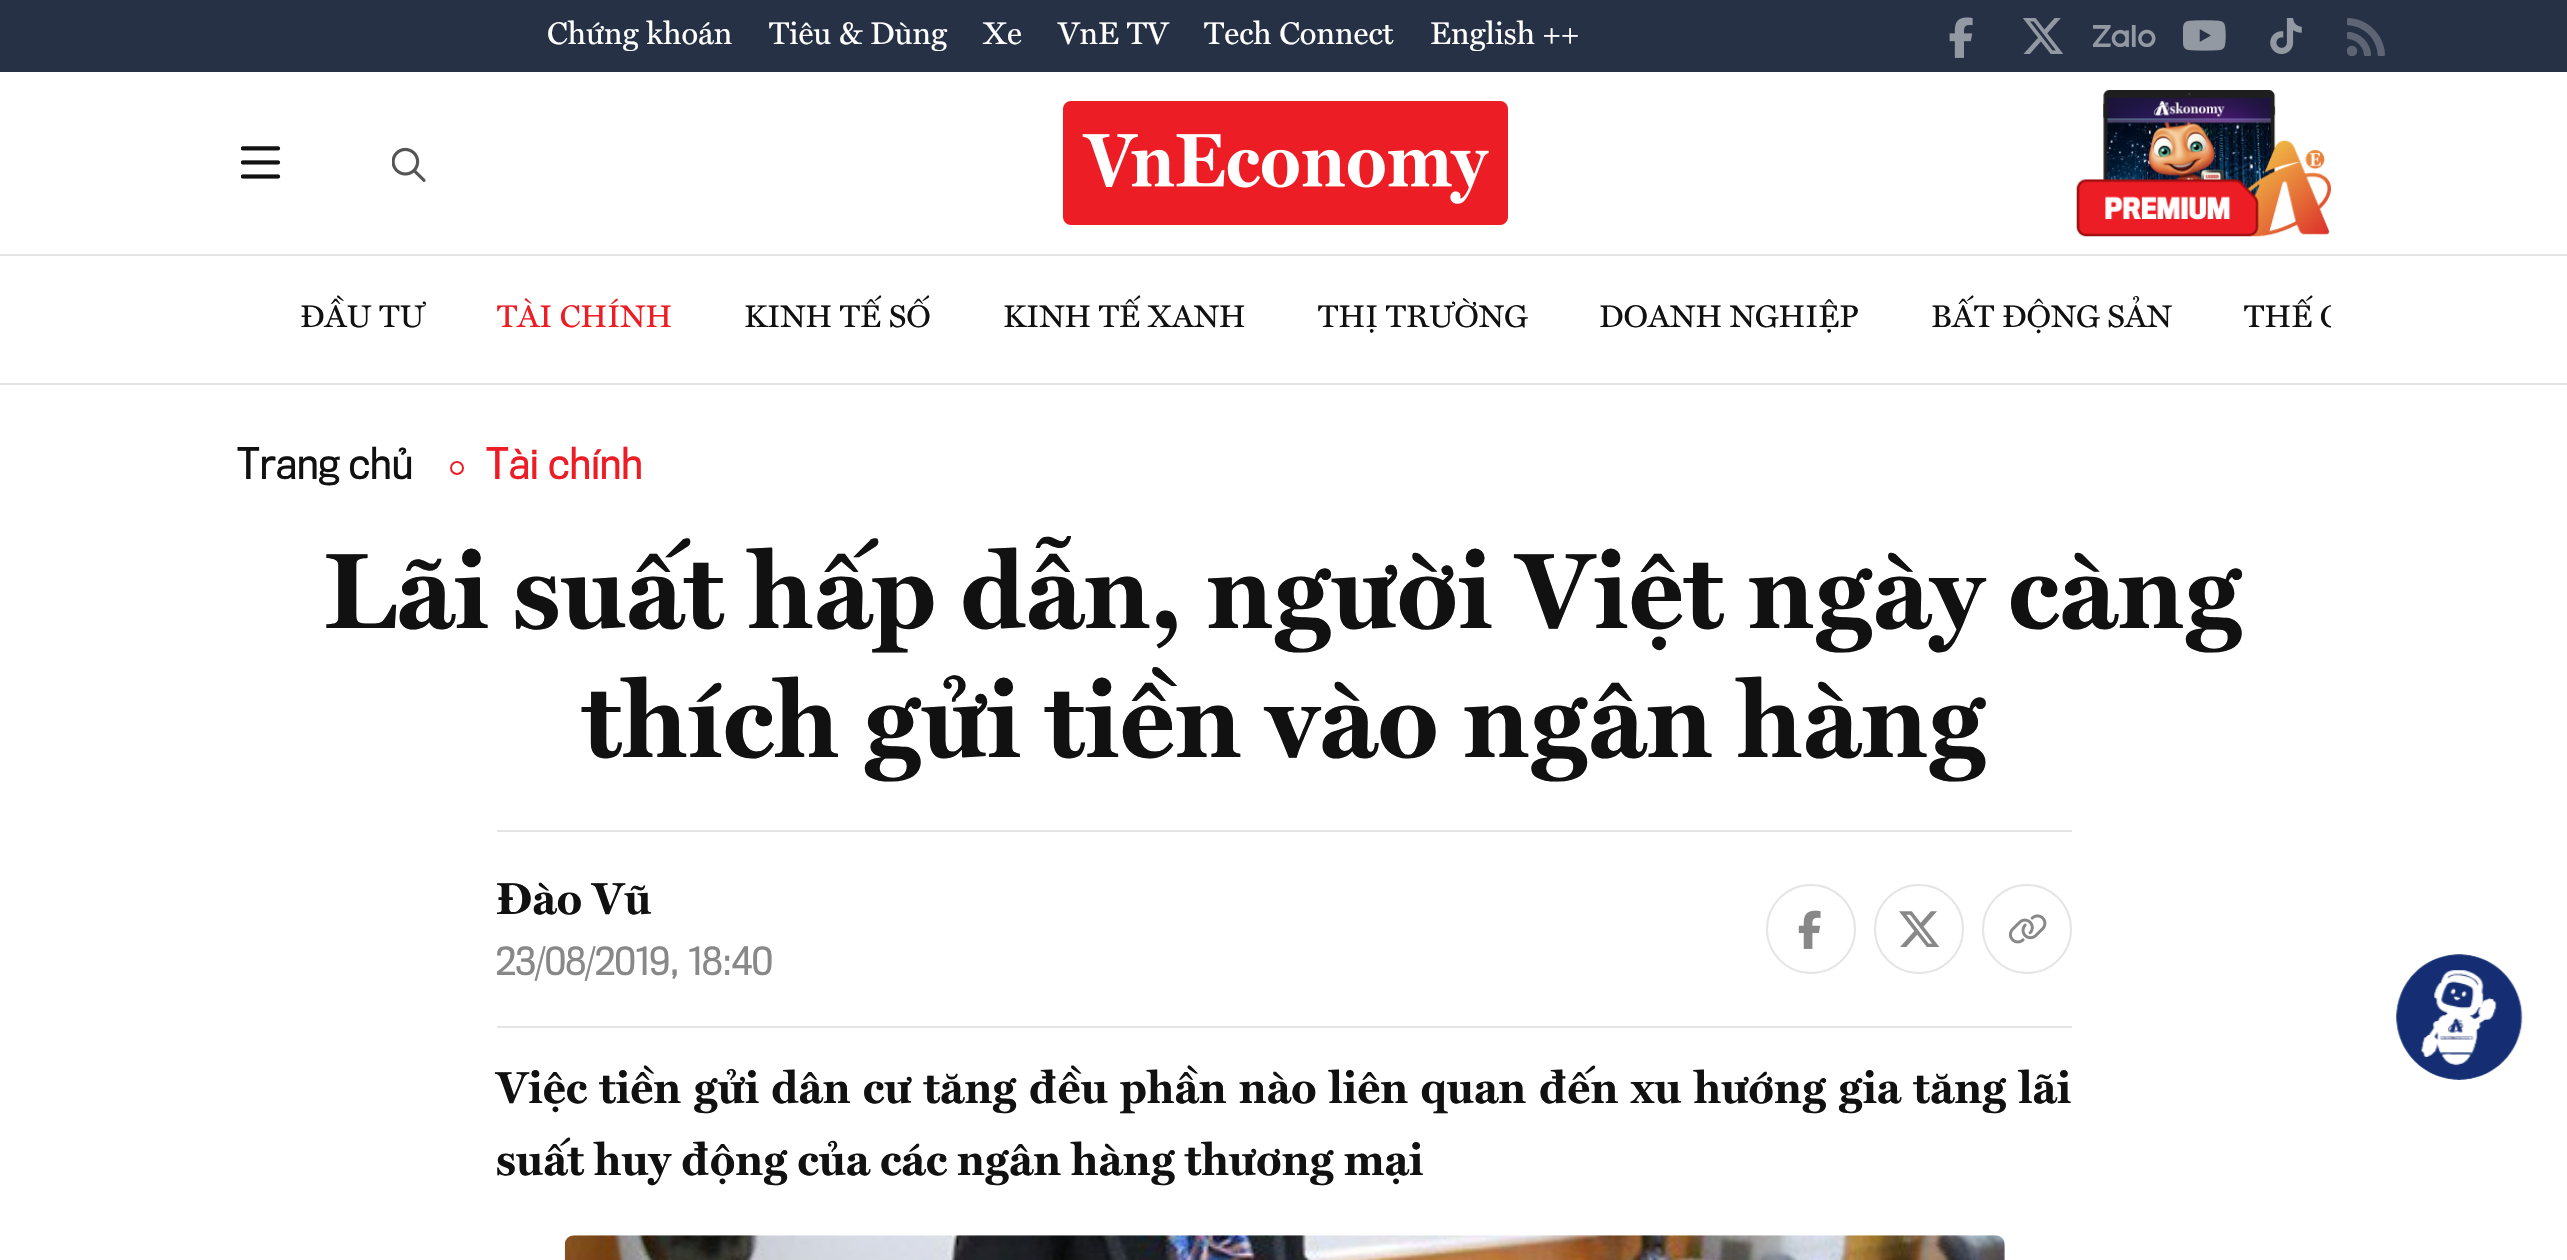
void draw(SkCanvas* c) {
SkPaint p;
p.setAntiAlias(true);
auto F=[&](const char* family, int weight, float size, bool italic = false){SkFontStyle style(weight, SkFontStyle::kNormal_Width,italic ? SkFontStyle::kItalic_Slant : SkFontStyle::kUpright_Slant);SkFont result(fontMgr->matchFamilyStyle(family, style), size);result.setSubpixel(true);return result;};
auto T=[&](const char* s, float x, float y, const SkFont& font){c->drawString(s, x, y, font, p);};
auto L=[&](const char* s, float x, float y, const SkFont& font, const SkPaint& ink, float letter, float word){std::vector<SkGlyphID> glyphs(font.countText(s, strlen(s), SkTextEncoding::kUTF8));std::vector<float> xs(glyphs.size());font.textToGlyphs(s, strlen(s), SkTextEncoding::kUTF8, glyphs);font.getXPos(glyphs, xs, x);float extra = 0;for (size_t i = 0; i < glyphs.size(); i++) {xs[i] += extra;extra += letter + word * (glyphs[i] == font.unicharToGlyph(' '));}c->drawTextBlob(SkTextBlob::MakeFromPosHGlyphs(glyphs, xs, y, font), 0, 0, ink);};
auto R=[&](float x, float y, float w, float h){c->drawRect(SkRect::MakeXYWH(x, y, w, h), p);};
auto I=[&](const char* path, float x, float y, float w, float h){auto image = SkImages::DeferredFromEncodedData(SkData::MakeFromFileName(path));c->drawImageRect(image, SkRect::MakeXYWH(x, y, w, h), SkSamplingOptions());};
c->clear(0xffffffff);
p.setColor(0xff263145);
R(0,0,2567,72);
auto f1 = F("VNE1",400,31.5);
p.setColor(0xffffffff);
T("Chứng khoán",547,44,f1);
T("Tiêu & Dùng",769,44,f1);
T("Xe",983,44,f1);
T("VnE TV",1058,44,f1);
T("Tech Connect",1204,44,f1);
T("English ++",1430,44,f1);
I("1.png",1949,17,24,41);
I("2.png",2023,18,40,36);
I("3.png",2093,25,63,22);
I("4.png",2183,20,43,31);
I("5.png",2270,18,32,36);
I("6.png",2347,18,38,38);
I("7.png",241,146,40,33);
I("8.png",392,147,34,35);
I("9.png",1063,101,445,124);
I("10.png",2076,90,255,147);
p.setColor(0xffe5e5e5);
R(0,254,2567,2);
R(0,383,2567,2);
p.setColor(0xff111111);
T("ĐẦU TƯ",300,327,f1);
p.setColor(0xffed1d26);
T("TÀI CHÍNH",497,327,f1);
p.setColor(0xff111111);
T("KINH TẾ SỐ",744,327,f1);
T("KINH TẾ XANH",1003,327,f1);
T("THỊ TRƯỜNG",1318,327,f1);
T("DOANH NGHIỆP",1599,327,f1);
T("BẤT ĐỘNG SẢN",1931,327,f1);
c->save();
c->clipRect(SkRect::MakeXYWH(239,257,2092,126));
T("THẾ G",2244,327,f1);
c->restore();
auto f2 = F("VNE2",400,40.5);
T("Trang chủ",237,479,f2);
p.setStroke(true);
p.setStrokeWidth(2);
p.setColor(0xffed1d26);
c->drawCircle(457,468,6,p);
p.setStroke(false);
T("Tài chính",486,479,f2);
auto f3 = F("VNE1",700,108);
p.setColor(0xff111111);
T("Lãi suất hấp dẫn, người Việt ngày càng",324,628,f3);
T("thích gửi tiền vào ngân hàng",582,757,f3);
p.setColor(0xffe5e5e5);
R(497,830,1575,2);
R(497,1026,1575,2);
auto f4 = F("VNE1",700,45);
p.setColor(0xff111111);
T("Đào Vũ",496,914,f4);
auto f5 = F("VNE2",400,36);
p.setColor(0xff888888);
T("23/08/2019, 18:40",496,975,f5);
p.setStroke(true);
p.setColor(0xffe5e5e5);
c->drawCircle(1811,929,44,p);
I("11.png",1798,910,23,39);
c->drawCircle(1919,929,44,p);
I("12.png",1899,911,41,36);
c->drawCircle(2027,929,44,p);
I("13.png",2009,914,38,30);
p.setStroke(false);
p.setColor(0xff111111);
L("Việc tiền gửi dân cư tăng đều phần nào liên quan đến xu hướng gia tăng lãi",496,1103,f4,p,0,2.25);
T("suất huy động của các ngân hàng thương mại",496,1175,f4);
I("14.png",564,1235,1441,25);
I("15.png",2396,954,127,126);
}
